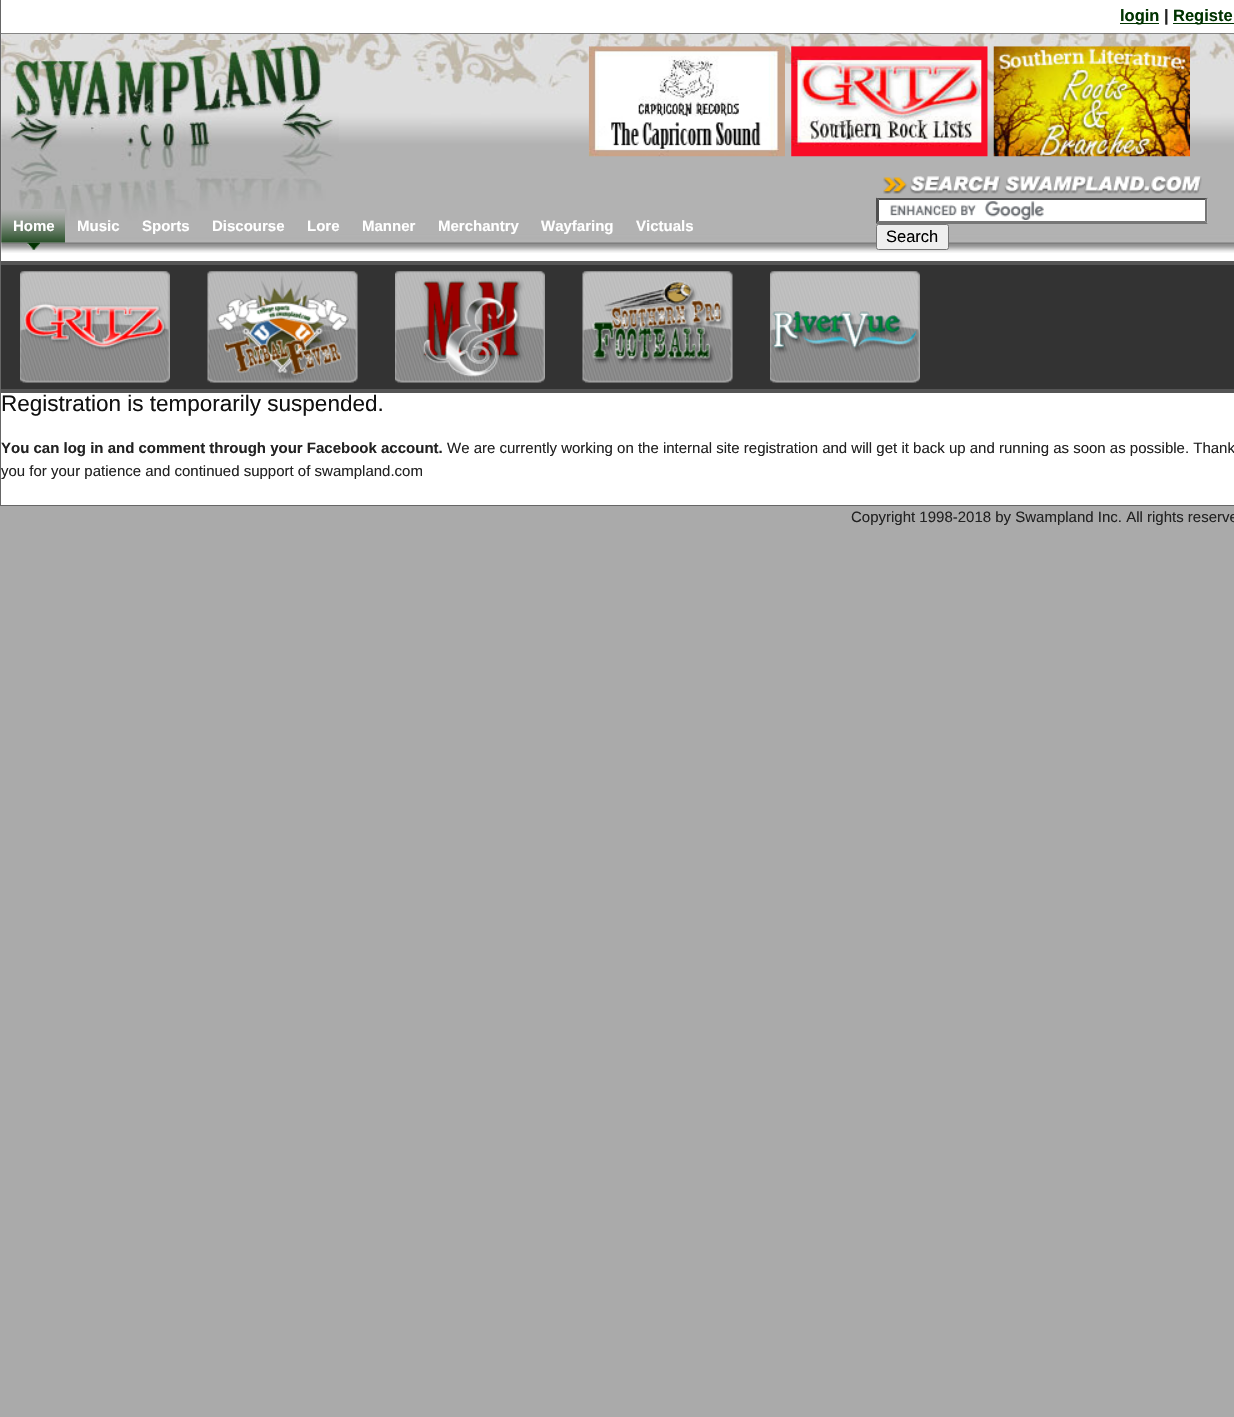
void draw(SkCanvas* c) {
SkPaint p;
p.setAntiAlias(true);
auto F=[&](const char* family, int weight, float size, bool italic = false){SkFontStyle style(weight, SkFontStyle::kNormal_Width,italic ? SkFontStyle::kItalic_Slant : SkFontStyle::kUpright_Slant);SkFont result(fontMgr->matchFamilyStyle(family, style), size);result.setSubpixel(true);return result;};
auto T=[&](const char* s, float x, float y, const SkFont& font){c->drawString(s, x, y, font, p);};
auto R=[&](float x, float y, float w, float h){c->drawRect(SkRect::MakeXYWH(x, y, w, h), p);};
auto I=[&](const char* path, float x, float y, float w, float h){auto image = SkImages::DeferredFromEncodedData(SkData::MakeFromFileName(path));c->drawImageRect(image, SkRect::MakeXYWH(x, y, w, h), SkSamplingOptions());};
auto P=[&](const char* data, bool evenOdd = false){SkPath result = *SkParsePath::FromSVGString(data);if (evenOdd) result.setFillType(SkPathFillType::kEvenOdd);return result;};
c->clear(0xffaaaaaa);
p.setColor(0xffffffff);
R(1,0,1233,33);
p.setColor(0xff666666);
R(0,33,1234,1);
R(0,0,1,34);
p.setColor(0xff003300);
R(1120,23,39,1);
auto f1 = F("Liberation Sans",700,16.5);
T("login",1120,21,f1);
p.setColor(0xff222222);
T("|",1164,21,f1);
p.setColor(0xff003300);
R(1173,23,61,1);
T("Registe",1173,21,f1);
p.setColor(0xffffffff);
R(1,34,1233,471);
p.setColor(0xff666666);
R(0,505,1234,1);
R(0,34,1,472);
I("1.png",1,33,1233,220);
I("2.png",1,40,338,198);
I("3.png",588,46,197,111);
I("4.png",791,46,197,111);
I("5.png",993,46,197,111);
I("6.png",27,242,13,8);
I("7.png",1,209,64,34);
auto f2 = F("Liberation Sans",700,15);
p.setColor(0xffffffff);
T("Home",13,231,f2);
T("Music",77,231,f2);
T("Sports",142,231,f2);
T("Discourse",212,231,f2);
T("Lore",307,231,f2);
T("Manner",362,231,f2);
T("Merchantry",438,231,f2);
T("Wayfaring",541,231,f2);
T("Victuals",636,231,f2);
I("8.png",883,176,319,18);
R(876,198,332,26);
I("9.png",890,201,154,19);
p.setColor(0xff4f4f4f);
c->drawPath(P("M876 198h332l-3 2h-326z"),p);
p.setColor(0xff767676);
c->drawPath(P("M1207.5 197.5v26.5l-2.5-3v-21z"),p);
c->drawPath(P("M1208 224h-332l3-3h326z"),p);
p.setColor(0xff4f4f4f);
c->drawPath(P("M876 224v-26.5l3 2.5v21z"),p);
p.setColor(0xffefefef);
c->drawRoundRect(SkRect::MakeXYWH(876.5,224.5,72,25),2,2,p);
p.setStroke(true);
p.setStrokeWidth(1);
p.setColor(0xff767676);
c->drawRoundRect(SkRect::MakeXYWH(876.5,224.5,72,25),2,2,p);
auto f3 = F("Liberation Sans",400,16.5);
p.setStroke(false);
p.setColor(0xff000000);
T("Search",886,242,f3);
p.setColor(0xff333333);
R(1,265,1233,124);
p.setColor(0xff555555);
R(1,261,1233,4);
R(1,389,1233,4);
I("10.png",20,271,150,112);
I("11.png",207,271,151,112);
I("12.png",395,271,150,112);
I("13.png",582,271,151,112);
I("14.png",770,271,150,112);
auto f4 = F("Liberation Sans",400,22.5);
p.setColor(0xff111111);
T("Registration is temporarily suspended.",1,411,f4);
p.setColor(0xff222222);
T("You can log in and comment through your Facebook account.",1,453,f2);
auto f5 = F("Liberation Sans",400,15);
T("We are currently working on the internal site registration and will get it back up and running as soon as possible. Thank",447,453,f5);
T("you for your patience and continued support of swampland.com",1,476,f5);
T("Copyright 1998-2018 by Swampland Inc. All rights reserve",851,522,f5);
}
